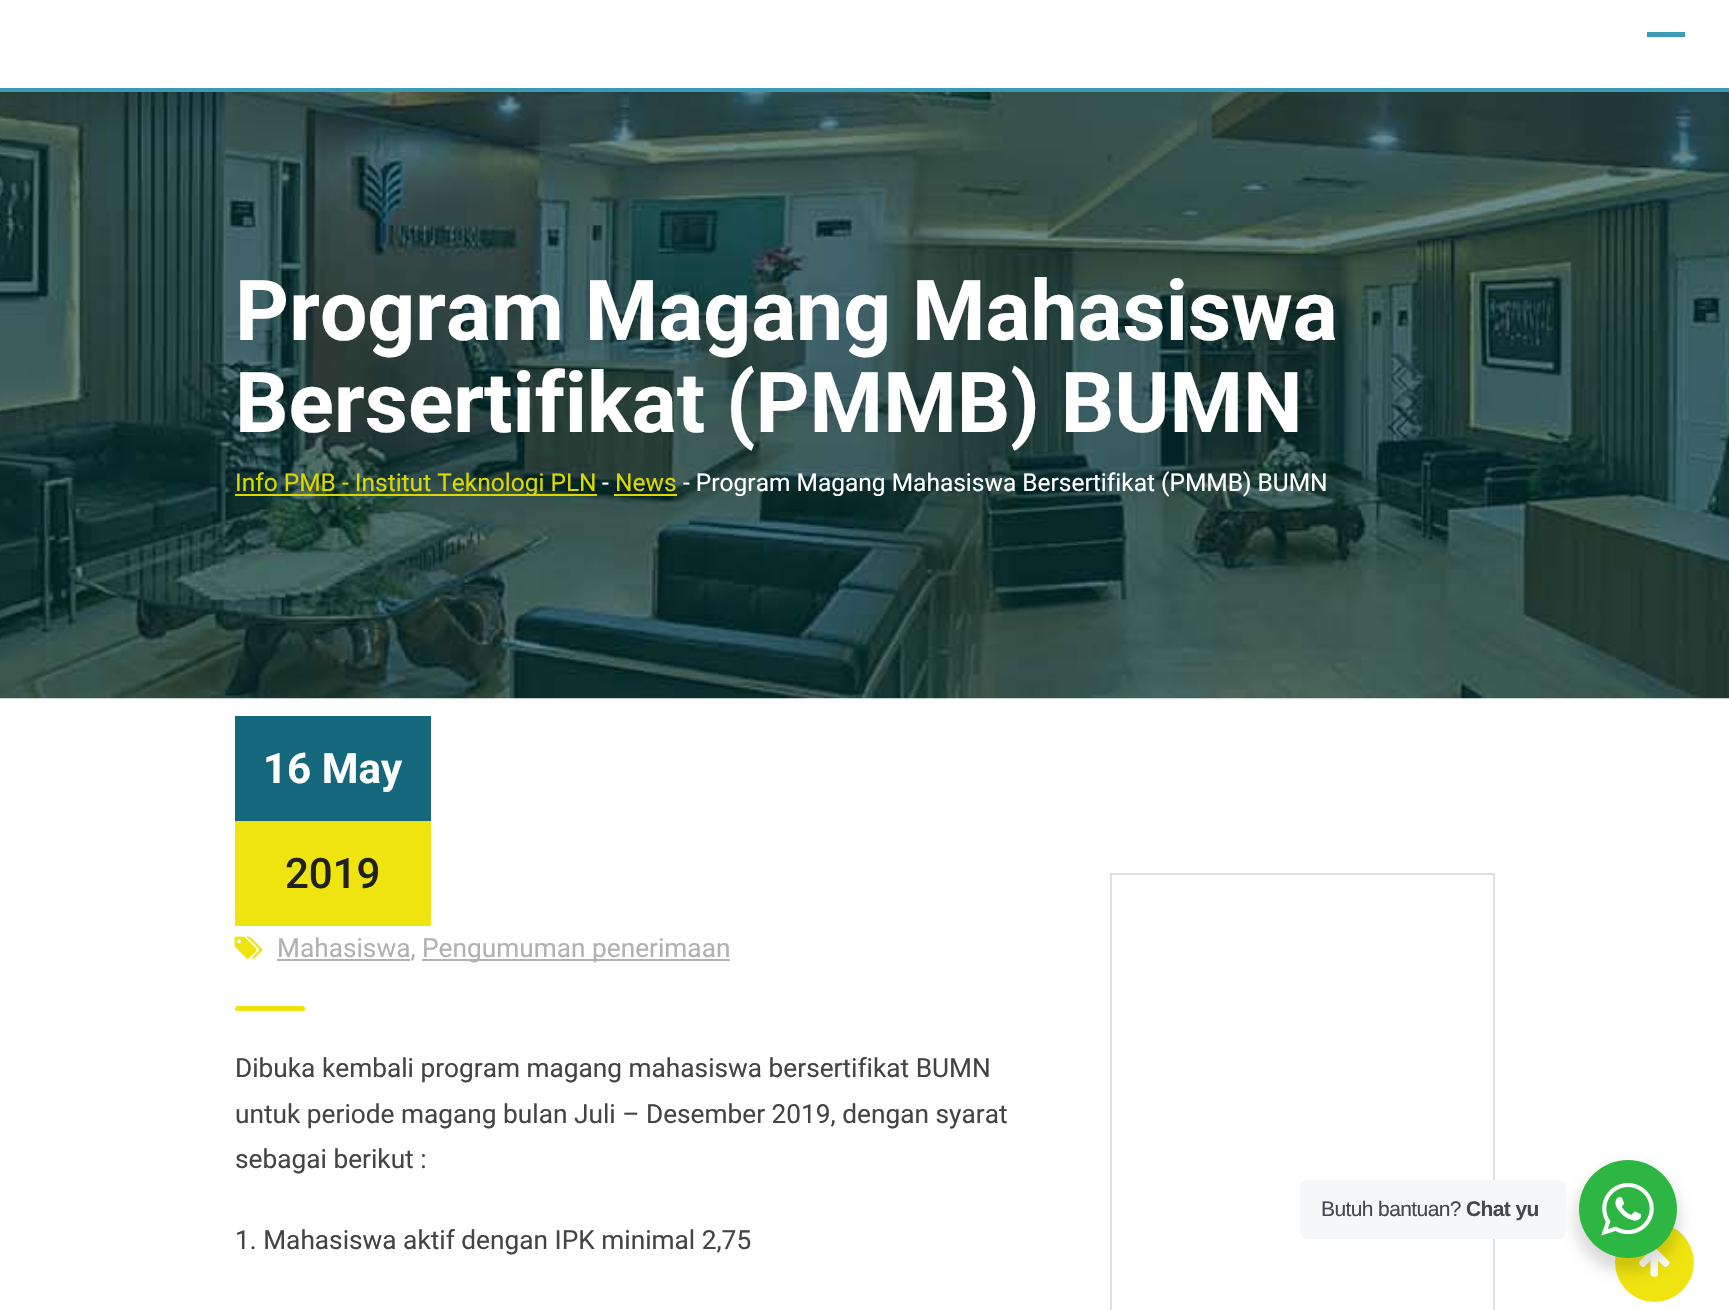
void draw(SkCanvas* c) {
SkPaint p;
p.setAntiAlias(true);
auto F=[&](const char* family, int weight, float size, bool italic = false){SkFontStyle style(weight, SkFontStyle::kNormal_Width,italic ? SkFontStyle::kItalic_Slant : SkFontStyle::kUpright_Slant);SkFont result(fontMgr->matchFamilyStyle(family, style), size);result.setSubpixel(true);return result;};
auto T=[&](const char* s, float x, float y, const SkFont& font){c->drawString(s, x, y, font, p);};
auto L=[&](const char* s, float x, float y, const SkFont& font, const SkPaint& ink, float letter, float word){std::vector<SkGlyphID> glyphs(font.countText(s, strlen(s), SkTextEncoding::kUTF8));std::vector<float> xs(glyphs.size());font.textToGlyphs(s, strlen(s), SkTextEncoding::kUTF8, glyphs);font.getXPos(glyphs, xs, x);float extra = 0;for (size_t i = 0; i < glyphs.size(); i++) {xs[i] += extra;extra += letter + word * (glyphs[i] == font.unicharToGlyph(' '));}c->drawTextBlob(SkTextBlob::MakeFromPosHGlyphs(glyphs, xs, y, font), 0, 0, ink);};
auto R=[&](float x, float y, float w, float h){c->drawRect(SkRect::MakeXYWH(x, y, w, h), p);};
auto Q=[&](float x, float y, float w, float h, float radius){c->drawRoundRect(SkRect::MakeXYWH(x, y, w, h), radius, radius, p);};
auto I=[&](const char* path, float x, float y, float w, float h){auto image = SkImages::DeferredFromEncodedData(SkData::MakeFromFileName(path));c->drawImageRect(image, SkRect::MakeXYWH(x, y, w, h), SkSamplingOptions());};
c->clear(0xffffffff);
p.setColor(0xff3b9bb4);
R(0,88,1729,4);
R(1647,32,38,5);
I("1.png",0,92,1729,607);
auto f1 = F("Roboto",700,84);
p.setColor(0xffffffff);
T("Program Magang Mahasiswa",235,340,f1);
T("Bersertifikat (PMMB) BUMN",235,432,f1);
p.setColor(0xffdbd700);
R(235,494,362,2);
auto f2 = F("Roboto",400,24.5);
T("Info PMB - Institut Teknologi PLN",235,491,f2);
p.setColor(0xffffffff);
T("-",602,491,f2);
p.setColor(0xffdbd700);
T("News",615,491,f2);
R(614,494,63,2);
p.setColor(0xffffffff);
T("- Program Magang Mahasiswa Bersertifikat (PMMB) BUMN",683,491,f2);
p.setColor(0xff15677b);
R(235,716,196,105);
auto f3 = F("Roboto",700,42);
p.setColor(0xffffffff);
T("16 May",263,783,f3);
p.setColor(0xffefe410);
R(235,821,196,105);
auto f4 = F("Roboto",500,42);
p.setColor(0xff212121);
T("2019",285,888,f4);
I("2.png",234,936,29,23);
p.setColor(0xffb1b1b1);
R(277,959,133,2);
auto f5 = F("Roboto",400,26.25);
T("Mahasiswa,",277,957,f5);
R(422,959,308,2);
T("Pengumuman penerimaan",422,957,f5);
p.setColor(0xffefe410);
Q(235,1006,70,5,2.5);
p.setColor(0xff444444);
T("Dibuka kembali program magang mahasiswa bersertifikat BUMN",235,1077,f5);
T("untuk periode magang bulan Juli – Desember 2019, dengan syarat",235,1123,f5);
T("sebagai berikut :",235,1168,f5);
T("1. Mahasiswa aktif dengan IPK minimal 2,75",235,1249,f5);
p.setStroke(true);
p.setStrokeWidth(2);
p.setColor(0xffe0e0e0);
c->drawRect(SkRect::MakeXYWH(1111,874,383,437),p);
p.setStroke(false);
p.setColor(0xffefe410);
c->drawCircle(1654.5,1262.5,39.5,p);
I("4.png",1639,1248,31,29);
p.setColor(0x24000000);
p.setMaskFilter(SkMaskFilter::MakeBlur(kNormal_SkBlurStyle, 7));
c->drawRoundRect(SkRect::MakeXYWH(1575,1167,105,105),52.5,52.5,p);
p.setMaskFilter(nullptr);
p.setColor(0xfff5f7f9);
Q(1300,1180,266,59,7);
auto f6 = F("Liberation Sans",400,21);
p.setColor(0xff43474e);
L("Butuh bantuan?",1321,1216,f6,p,-.6,0);
auto f7 = F("Liberation Sans",700,21);
L("Chat yu",1466,1216,f7,p,-.6,0);
p.setColor(0xff2db742);
c->drawCircle(1628,1209,49,p);
I("3.png",1601,1183,53,53);
}
